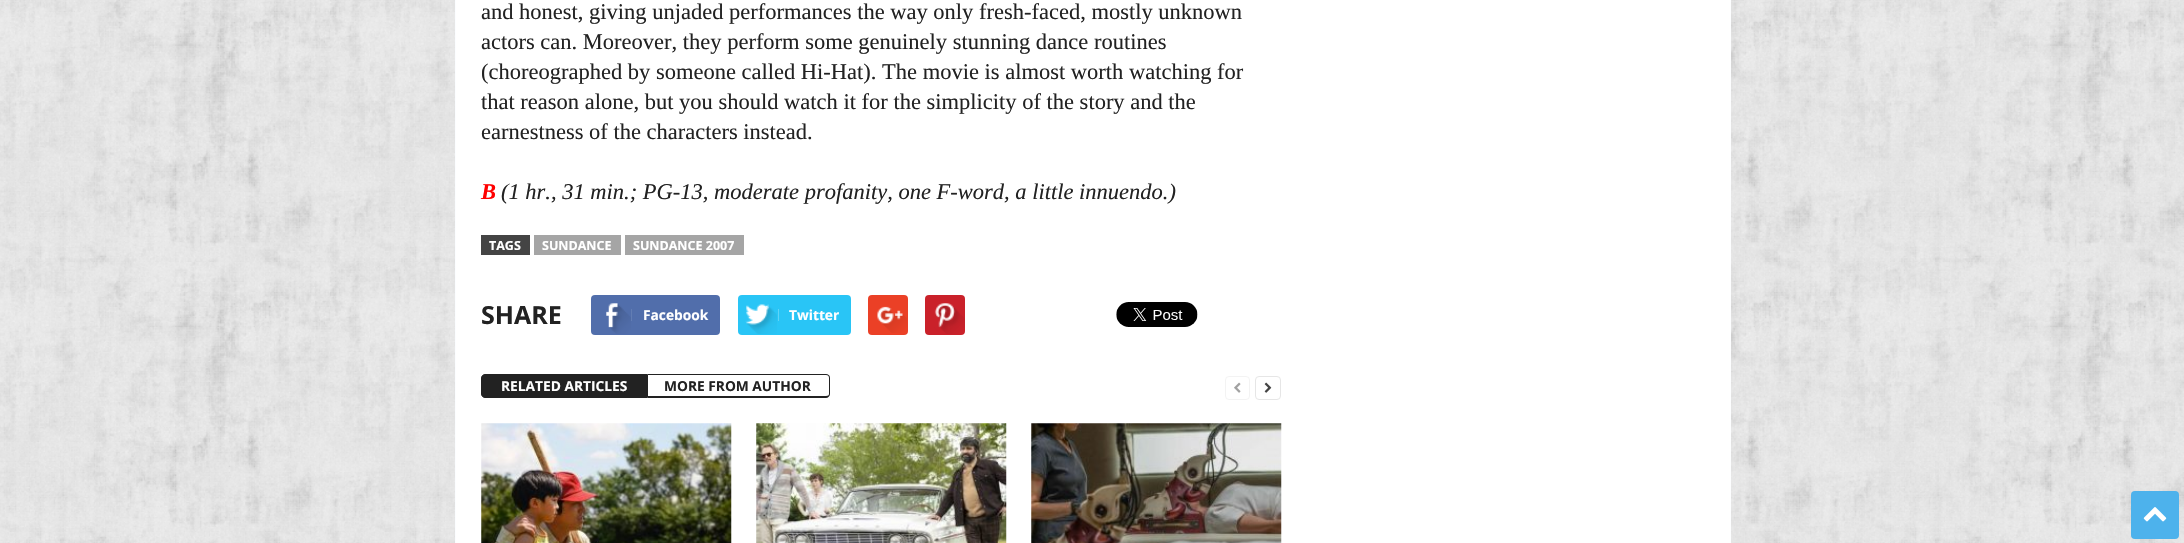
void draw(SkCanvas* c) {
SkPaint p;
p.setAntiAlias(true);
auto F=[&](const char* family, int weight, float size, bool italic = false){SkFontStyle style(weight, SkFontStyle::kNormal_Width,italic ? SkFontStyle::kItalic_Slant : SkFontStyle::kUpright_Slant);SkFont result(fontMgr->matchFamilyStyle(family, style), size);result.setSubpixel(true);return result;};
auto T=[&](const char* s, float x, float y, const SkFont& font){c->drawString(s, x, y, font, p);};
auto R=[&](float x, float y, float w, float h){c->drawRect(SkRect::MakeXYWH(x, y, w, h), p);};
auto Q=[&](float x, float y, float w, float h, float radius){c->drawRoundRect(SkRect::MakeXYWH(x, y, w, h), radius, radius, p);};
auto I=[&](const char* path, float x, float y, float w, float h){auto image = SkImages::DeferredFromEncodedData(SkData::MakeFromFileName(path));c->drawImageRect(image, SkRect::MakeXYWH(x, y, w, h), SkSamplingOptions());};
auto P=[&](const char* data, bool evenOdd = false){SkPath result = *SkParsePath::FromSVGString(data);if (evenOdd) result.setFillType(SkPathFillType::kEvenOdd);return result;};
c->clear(0xffffffff);
I("1.png",0,0,2184,543);
p.setColor(0xffffffff);
R(456,0,1274,543);
p.setColor(0xfffbfdff);
R(455,0,1,543);
auto f1 = F("Liberation Serif",400,22.5);
p.setColor(0xff222222);
T("and honest, giving unjaded performances the way only fresh-faced, mostly unknown",481,19,f1);
T("actors can. Moreover, they perform some genuinely stunning dance routines",481,49,f1);
T("(choreographed by someone called Hi-Hat). The movie is almost worth watching for",481,79,f1);
T("that reason alone, but you should watch it for the simplicity of the story and the",481,109,f1);
T("earnestness of the characters instead.",481,139,f1);
auto f2 = F("Liberation Serif",700,22.5,true);
p.setColor(0xffff0000);
T("B",481,199,f2);
auto f3 = F("Liberation Serif",400,22.5,true);
p.setColor(0xff222222);
T("(1 hr., 31 min.; PG-13, moderate profanity, one F-word, a little innuendo.)",501,199,f3);
p.setColor(0xff444444);
R(481,235,49,20);
auto f4 = F("Open Sans",700,12.5);
p.setColor(0xffffffff);
T("TAGS",489,250,f4);
p.setColor(0xffa5a5a5);
R(534,235,87,20);
p.setColor(0xffffffff);
T("SUNDANCE",542,250,f4);
p.setColor(0xffa5a5a5);
R(625,235,119,20);
p.setColor(0xffffffff);
T("SUNDANCE 2007",633,250,f4);
auto f5 = F("Open Sans",700,25);
p.setColor(0xff222222);
T("SHARE",481,324,f5);
p.setColor(0xff516eab);
Q(591,295,129,40,4);
I("2.png",606,303,25,31);
p.setColor(0xff627db3);
R(631,309,1,12);
auto f6 = F("Open Sans",700,13.75);
p.setColor(0xffffffff);
T("Facebook",643,320,f6);
p.setColor(0xff29c5f6);
Q(738,295,113,40,4);
I("3.png",745,304,32,30);
p.setColor(0xff5fd4f8);
R(778,309,1,12);
p.setColor(0xffffffff);
T("Twitter",789,320,f6);
p.setColor(0xffeb4026);
Q(868,295,40,40,4);
I("4.png",877,306,30,27);
p.setColor(0xffca212a);
Q(925,295,40,40,4);
I("5.png",934,303,31,31);
I("6.png",1116,302,82,25);
p.setColor(0xff222222);
c->drawPath(P("M485 374.5h162.5v23h-162.5c-2 0-3.5-1.5-3.5-3.5v-16c0-2 1.5-3.5 3.5-3.5z"),p);
p.setStroke(true);
p.setStrokeWidth(1);
c->drawPath(P("M485 374.5h162.5v23h-162.5c-2 0-3.5-1.5-3.5-3.5v-16c0-2 1.5-3.5 3.5-3.5z"),p);
p.setStroke(false);
p.setColor(0xffffffff);
T("RELATED ARTICLES",501,391,f6);
p.setColor(0xff222222);
c->drawPath(P("M648 374h178c2 0 4 1 4 4v16c0 2-2 4-4 4h-178zm0 1h178c2 0 3 1 3 3v16c0 1-1 2-3 2h-178z",true),p);
T("MORE FROM AUTHOR",664,391,f6);
p.setStroke(true);
p.setColor(0xfff3f3f3);
c->drawRoundRect(SkRect::MakeXYWH(1225.5,376.5,24,23),3.5,3.5,p);
I("7.png",1234,382,7,11);
p.setColor(0xffe6e6e6);
c->drawRoundRect(SkRect::MakeXYWH(1255.5,376.5,25,23),3.5,3.5,p);
I("8.png",1264,382,8,11);
I("9.png",481,423,251,120);
I("10.png",756,423,251,120);
I("11.png",1031,423,251,120);
p.setStroke(false);
p.setColor(0xfffdfeff);
R(1730,0,1,543);
p.setColor(0xff4db2ec);
Q(2131,491,48,48,4);
I("12.png",2143,507,24,15);
}
